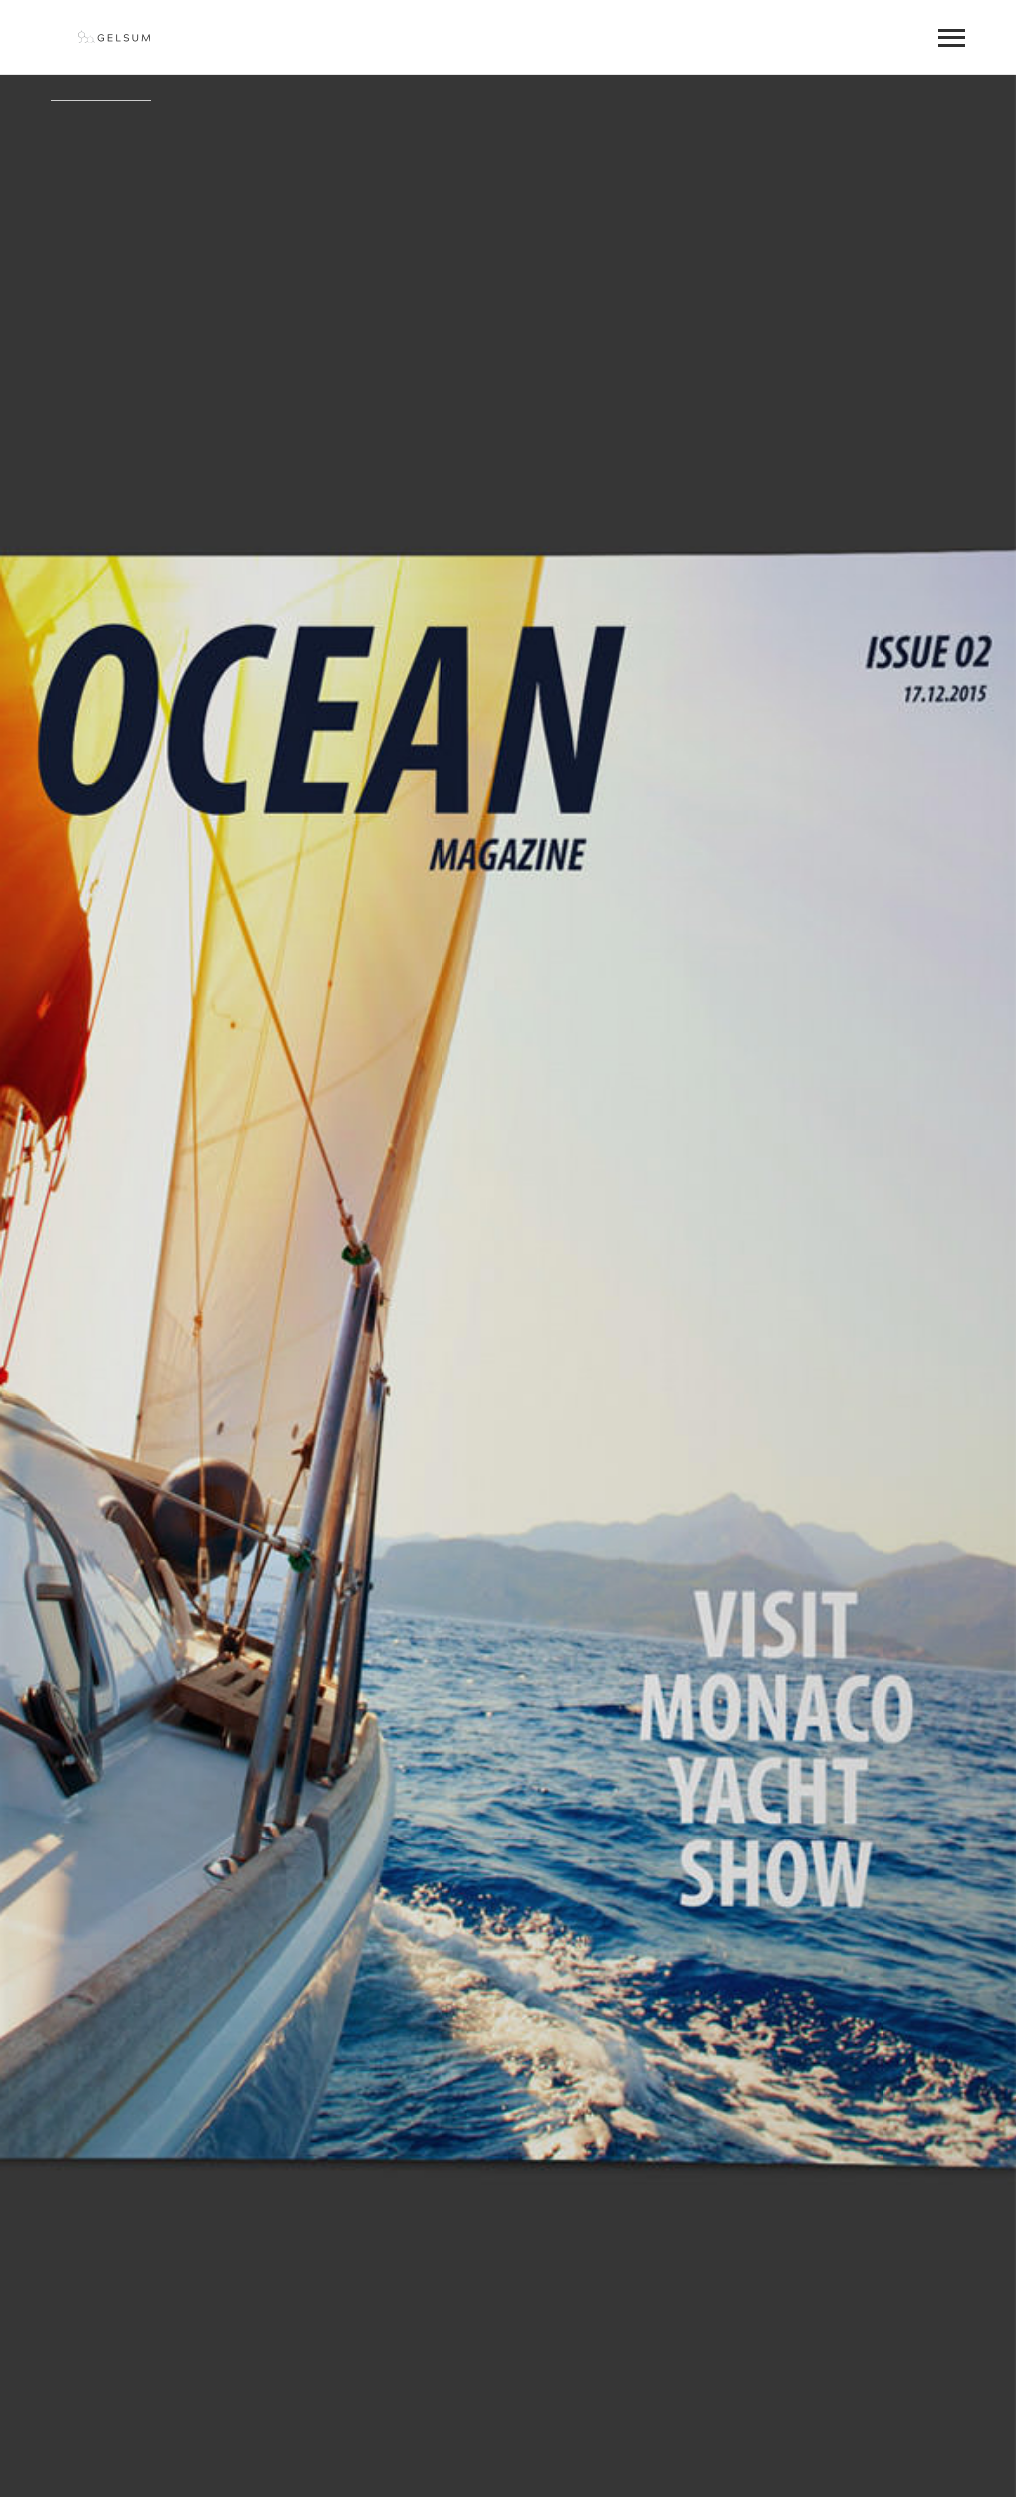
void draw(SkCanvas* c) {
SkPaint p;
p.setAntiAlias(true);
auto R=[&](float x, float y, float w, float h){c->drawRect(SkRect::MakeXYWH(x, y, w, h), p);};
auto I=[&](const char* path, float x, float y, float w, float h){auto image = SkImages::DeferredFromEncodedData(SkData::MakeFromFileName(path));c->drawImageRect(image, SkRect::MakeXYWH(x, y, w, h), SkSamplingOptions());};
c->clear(0xffffffff);
p.setColor(0xffe5e5e5);
R(0,74,1016,1);
I("2.png",0,75,1016,2422);
p.setColor(0xffcecece);
R(51,100,100,1);
I("1.png",78,30,72,13);
p.setColor(0xff303030);
R(938,36,27,3);
R(938,29,27,3);
R(938,44,27,3);
}
